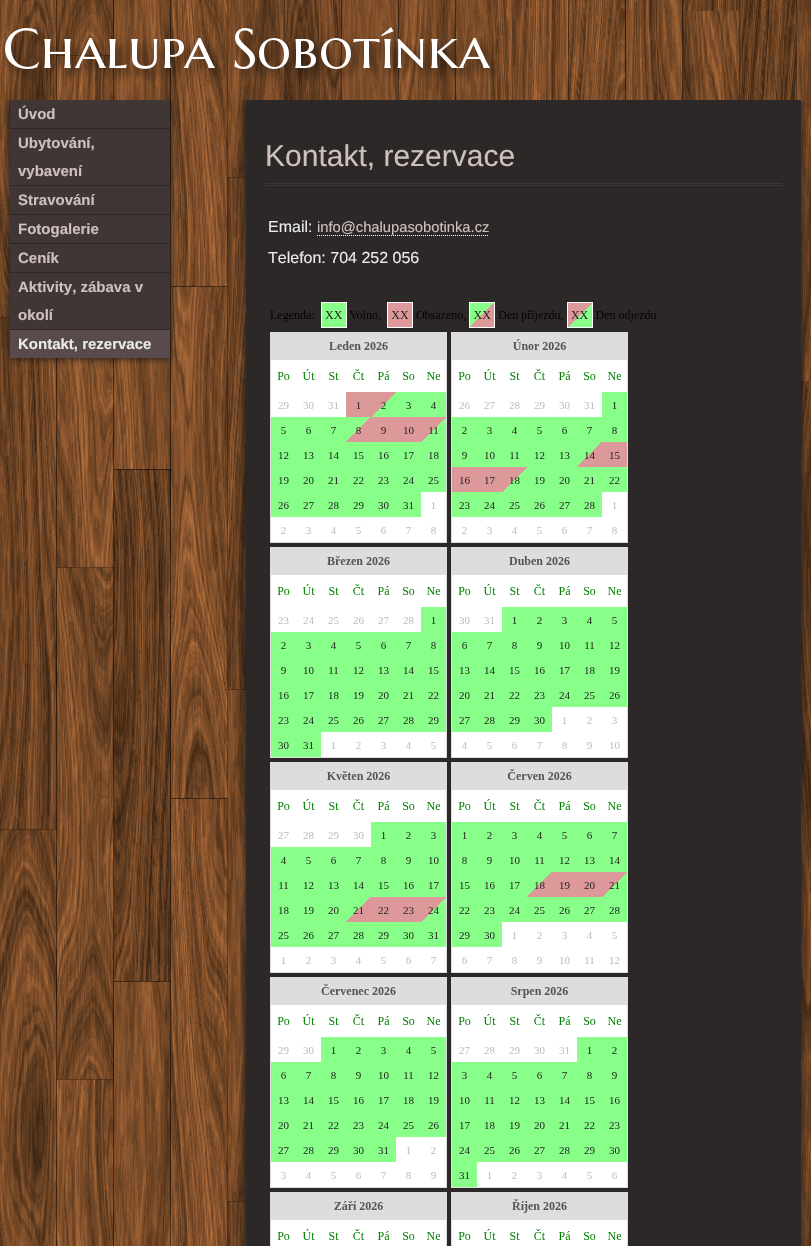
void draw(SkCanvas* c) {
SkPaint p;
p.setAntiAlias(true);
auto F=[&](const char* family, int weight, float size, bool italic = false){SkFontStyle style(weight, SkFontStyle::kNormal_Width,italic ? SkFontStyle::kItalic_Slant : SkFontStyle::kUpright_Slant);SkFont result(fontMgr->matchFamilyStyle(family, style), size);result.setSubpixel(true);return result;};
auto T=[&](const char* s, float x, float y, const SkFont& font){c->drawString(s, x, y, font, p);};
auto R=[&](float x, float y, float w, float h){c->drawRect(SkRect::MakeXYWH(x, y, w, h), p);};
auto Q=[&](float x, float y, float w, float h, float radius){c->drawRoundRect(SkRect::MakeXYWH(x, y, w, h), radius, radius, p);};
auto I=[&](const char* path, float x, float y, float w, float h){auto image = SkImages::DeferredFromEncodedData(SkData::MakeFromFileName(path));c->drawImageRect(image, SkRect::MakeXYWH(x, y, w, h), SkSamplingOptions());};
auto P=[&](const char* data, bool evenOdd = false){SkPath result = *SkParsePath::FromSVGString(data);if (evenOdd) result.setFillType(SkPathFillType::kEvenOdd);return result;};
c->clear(0xffffffff);
I("1.png",0,0,811,1246);
I("2.png",4,27,496,55);
c->save();
c->clipRect(SkRect::MakeXYWH(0,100,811,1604));
p.setColor(0xff111111);
p.setMaskFilter(SkMaskFilter::MakeBlur(kNormal_SkBlurStyle, 4));
c->drawRoundRect(SkRect::MakeXYWH(10,100,160,258),3,3,p);
p.setMaskFilter(nullptr);
c->restore();
p.setColor(0xff2d2828);
R(10,128,160,202);
p.setColor(0xff413636);
R(10,100,160,28);
auto f1 = F("Liberation Sans",700,15);
p.setColor(0xffcfc0c0);
T("Úvod",18,119,f1);
p.setColor(0xff413636);
R(10,129,160,56);
p.setColor(0xffcfc0c0);
T("Ubytování,",18,148,f1);
T("vybavení",18,176,f1);
p.setColor(0xff413636);
R(10,186,160,28);
p.setColor(0xffcfc0c0);
T("Stravování",18,205,f1);
p.setColor(0xff413636);
R(10,215,160,28);
p.setColor(0xffcfc0c0);
T("Fotogalerie",18,234,f1);
p.setColor(0xff413636);
R(10,244,160,28);
p.setColor(0xffcfc0c0);
T("Ceník",18,263,f1);
p.setColor(0xff413636);
R(10,273,160,56);
p.setColor(0xffcfc0c0);
T("Aktivity, zábava v",18,292,f1);
T("okolí",18,320,f1);
p.setColor(0xff594b4b);
R(10,330,160,28);
p.setColor(0xffeaeaea);
T("Kontakt, rezervace",18,349,f1);
c->save();
c->clipRect(SkRect::MakeXYWH(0,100,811,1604));
p.setColor(0xff111111);
p.setMaskFilter(SkMaskFilter::MakeBlur(kNormal_SkBlurStyle, 4));
c->drawRoundRect(SkRect::MakeXYWH(246,100,555,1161),3,3,p);
p.setMaskFilter(nullptr);
c->restore();
p.setColor(0xff2d2828);
Q(246,100,555,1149,3);
p.setColor(0xff3f3535);
R(265,183,517,1);
R(265,185,517,1);
auto f2 = F("Liberation Sans",400,30);
p.setColor(0xffcfc0c0);
T("Kontakt, rezervace",265,166,f2);
auto f3 = F("Liberation Sans",400,16);
p.setColor(0xffeaeaea);
T("Email:",268,232,f3);
p.setStroke(true);
p.setStrokeWidth(1);
p.setColor(0xffffffff);
p.setPathEffect(SkDashPathEffect::Make({{1,1}}, 0));
c->drawPath(P("M317 235.5h171"),p);
p.setPathEffect(nullptr);
auto f4 = F("Liberation Sans",400,14.75);
p.setStroke(false);
p.setColor(0xffcfc0c0);
T("info@chalupasobotinka.cz",317,232,f4);
p.setColor(0xffeaeaea);
T("Telefon: 704 252 056",268,263,f3);
I("3.png",270,302,386,944);
}
